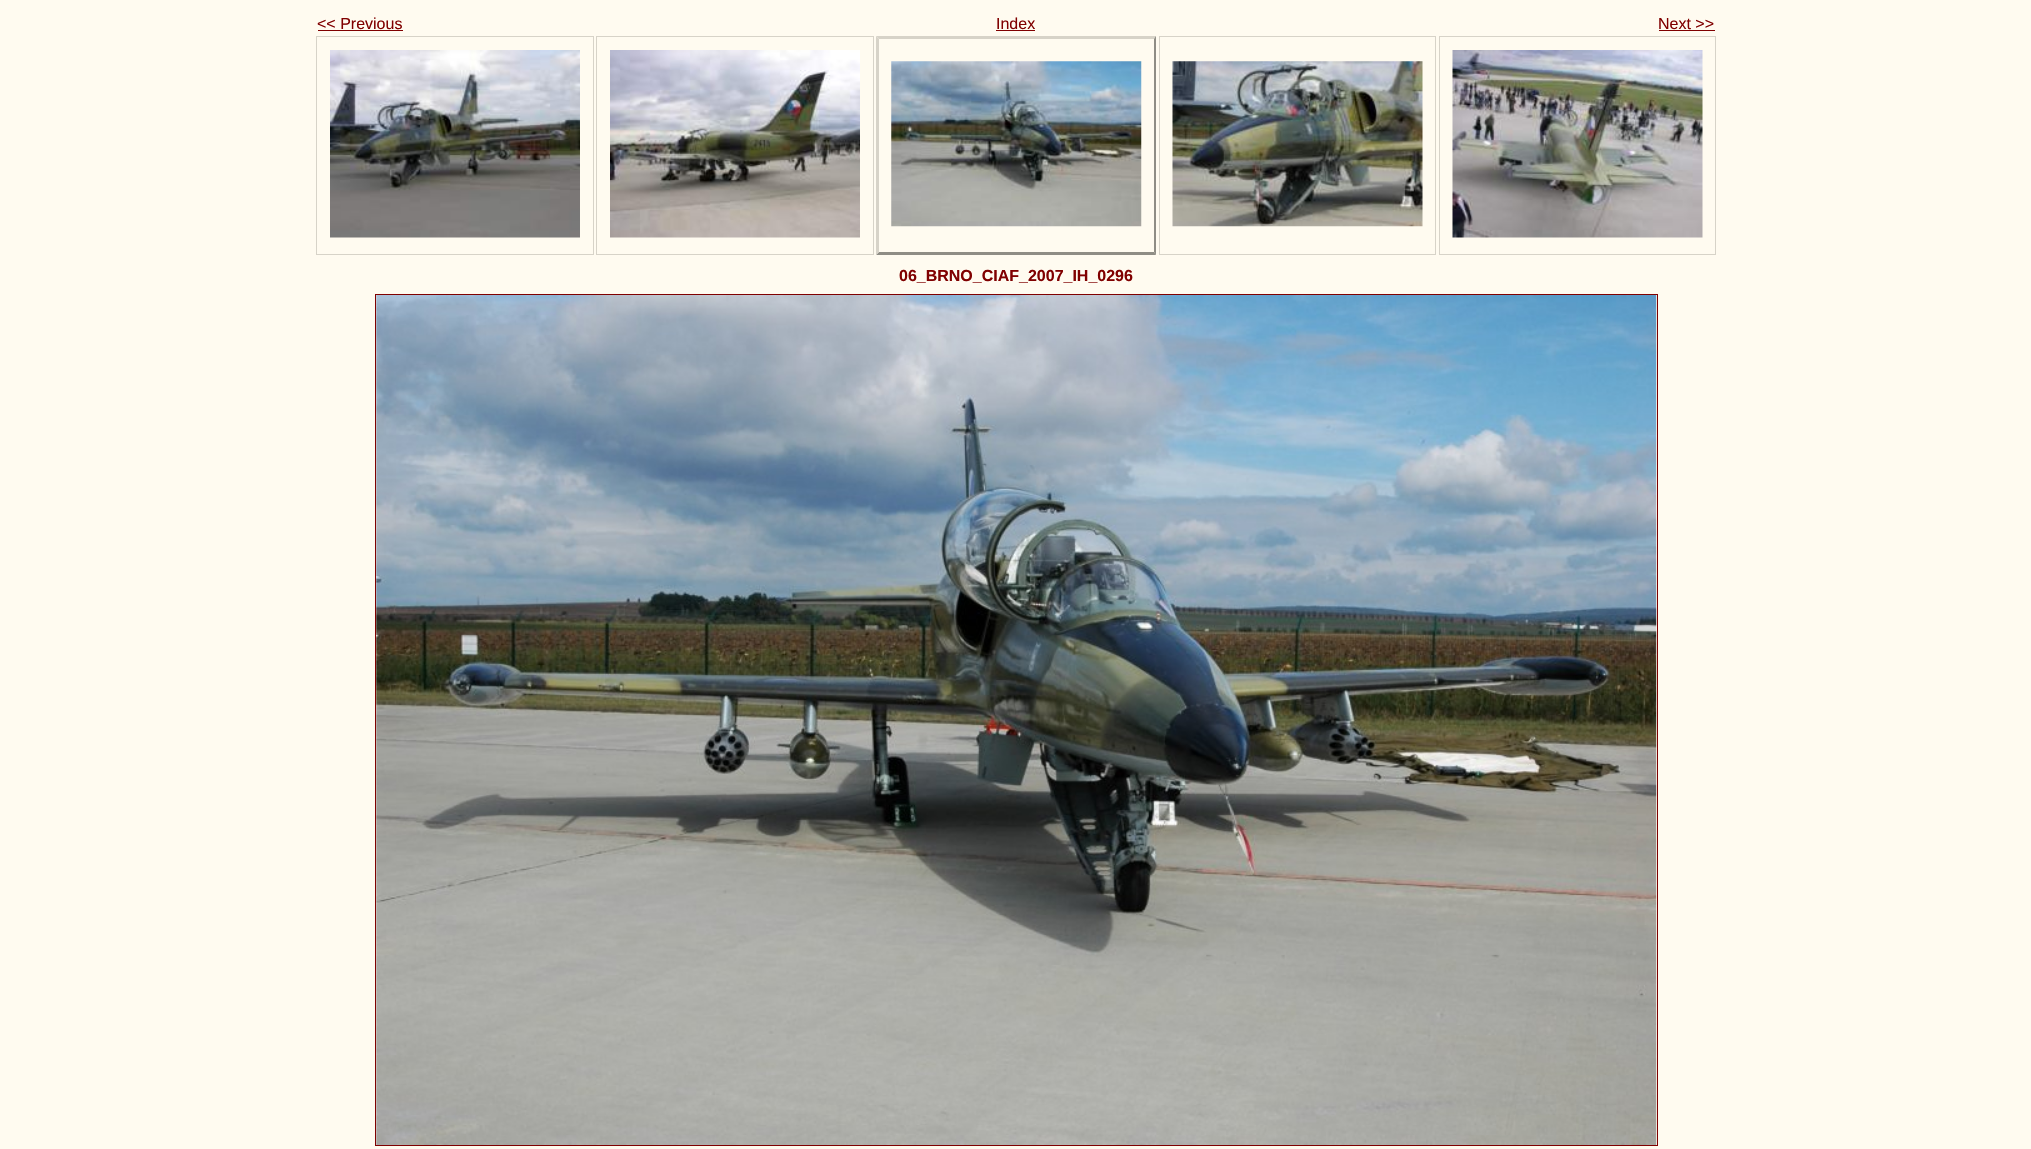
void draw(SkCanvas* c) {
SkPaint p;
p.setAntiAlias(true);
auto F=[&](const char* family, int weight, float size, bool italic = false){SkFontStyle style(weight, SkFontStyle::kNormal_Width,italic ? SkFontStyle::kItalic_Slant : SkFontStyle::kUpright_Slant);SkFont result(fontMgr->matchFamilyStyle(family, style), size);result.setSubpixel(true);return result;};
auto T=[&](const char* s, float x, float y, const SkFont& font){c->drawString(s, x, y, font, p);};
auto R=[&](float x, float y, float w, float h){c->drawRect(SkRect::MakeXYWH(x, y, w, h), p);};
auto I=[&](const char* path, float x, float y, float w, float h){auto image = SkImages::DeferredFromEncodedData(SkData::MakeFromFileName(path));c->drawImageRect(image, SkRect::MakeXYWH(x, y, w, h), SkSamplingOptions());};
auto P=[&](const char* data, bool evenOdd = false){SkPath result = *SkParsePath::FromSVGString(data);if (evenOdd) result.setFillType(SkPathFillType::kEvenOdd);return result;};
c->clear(0xfffffbf0);
auto f1 = F("Liberation Sans",400,16);
p.setColor(0xff800000);
T("<< Previous",317,29,f1);
R(318,30,85,1);
T("Index",996,29,f1);
R(996,30,39,1);
T("Next >>",1658,29,f1);
R(1659,30,56,1);
p.setStroke(true);
p.setStrokeWidth(1);
p.setColor(0xffd7d3c8);
c->drawRect(SkRect::MakeXYWH(316.5,36.5,277,218),p);
I("1.png",330,50,250,188);
c->drawRect(SkRect::MakeXYWH(596.5,36.5,277,218),p);
I("2.png",610,50,250,188);
p.setStroke(false);
c->drawPath(P("M876 36h280l-2 3h-275z"),p);
p.setColor(0xff8f8d85);
c->drawPath(P("M1156 36v219l-2-3v-213z"),p);
c->drawPath(P("M1156 255h-280l3-3h275z"),p);
p.setColor(0xffd7d3c8);
c->drawPath(P("M876 255v-219l3 3v213z"),p);
I("3.png",891,61,251,166);
p.setStroke(true);
c->drawRect(SkRect::MakeXYWH(1159.5,36.5,276,218),p);
I("4.png",1172,61,251,166);
c->drawRect(SkRect::MakeXYWH(1439.5,36.5,276,218),p);
I("5.png",1452,50,251,188);
auto f2 = F("Liberation Sans",700,16);
p.setStroke(false);
p.setColor(0xff800000);
T("06_BRNO_CIAF_2007_IH_0296",899,281,f2);
p.setStroke(true);
c->drawRect(SkRect::MakeXYWH(375.5,294.5,1282,851),p);
I("6.png",376,295,1281,850);
}
